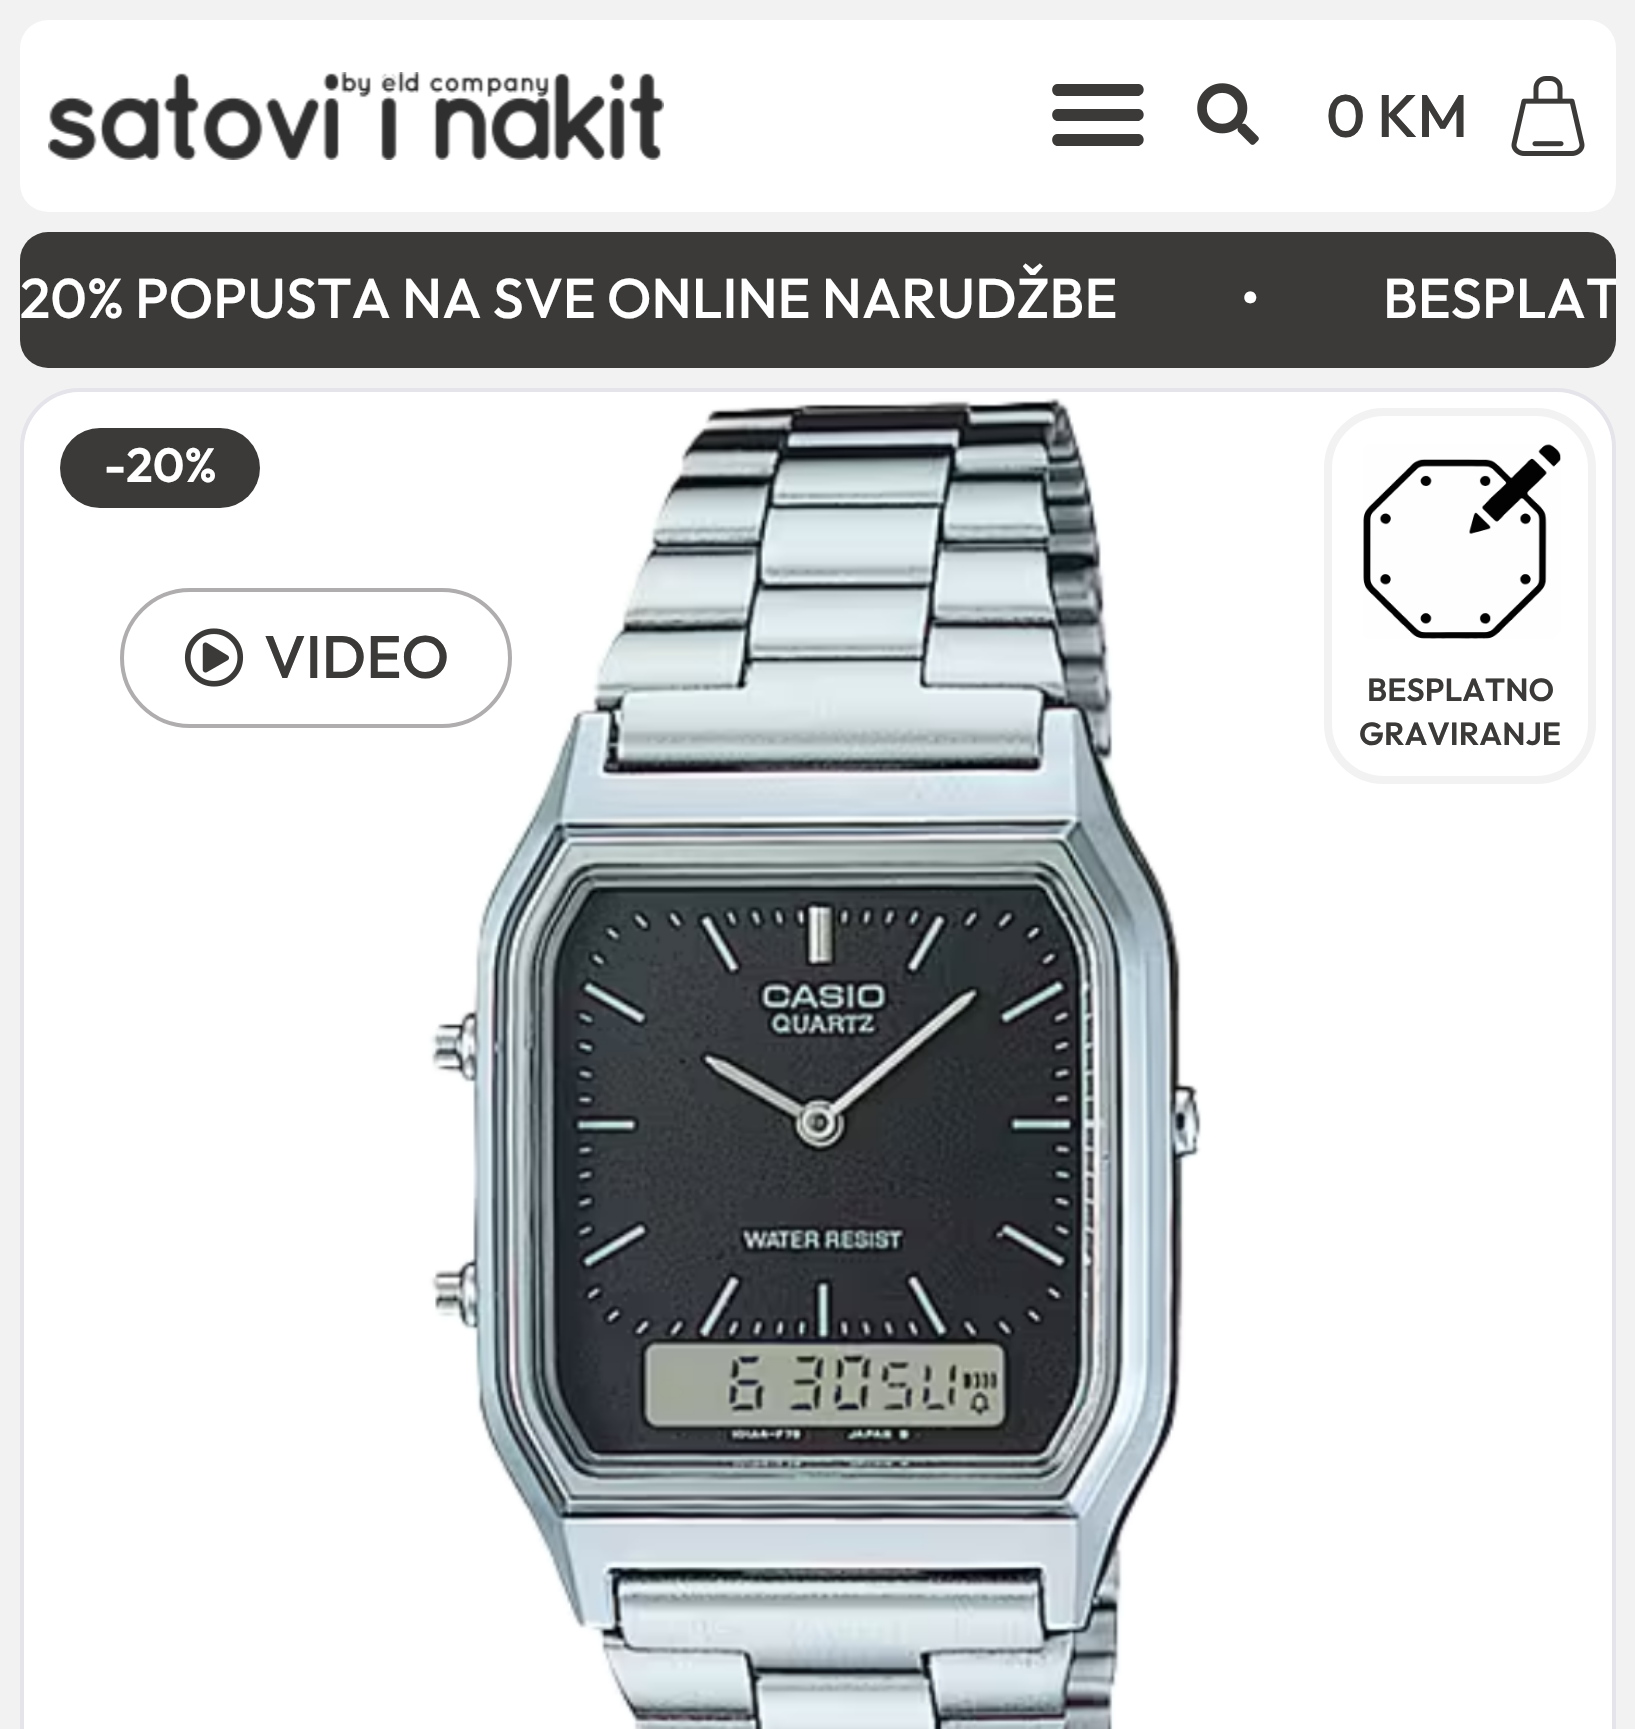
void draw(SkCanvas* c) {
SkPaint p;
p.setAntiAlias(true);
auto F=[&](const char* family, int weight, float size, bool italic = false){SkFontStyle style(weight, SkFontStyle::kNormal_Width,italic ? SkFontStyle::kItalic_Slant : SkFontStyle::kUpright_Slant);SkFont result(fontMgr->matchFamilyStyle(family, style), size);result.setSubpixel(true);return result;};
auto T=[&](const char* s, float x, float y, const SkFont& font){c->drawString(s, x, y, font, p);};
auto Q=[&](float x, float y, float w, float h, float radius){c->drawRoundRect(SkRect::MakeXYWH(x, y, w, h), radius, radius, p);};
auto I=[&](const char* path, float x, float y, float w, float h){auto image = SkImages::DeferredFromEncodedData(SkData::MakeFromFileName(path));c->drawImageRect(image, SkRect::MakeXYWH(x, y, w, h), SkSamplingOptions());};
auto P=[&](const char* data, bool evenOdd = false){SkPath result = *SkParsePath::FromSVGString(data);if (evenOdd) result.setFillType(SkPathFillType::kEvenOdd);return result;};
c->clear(0xfff2f2f2);
p.setColor(0xffffffff);
Q(20,20,1596,192,28);
I("1.png",48,72,616,88);
p.setColor(0xff3b3a38);
c->drawPath(P("M1058 96h81l3-2c3-3 2-9-3-10h-82c-7 1-6 12 1 12zm0 25h81l3-2c3-3 2-9-3-10h-82c-7 1-6 12 1 12zm0 25h81l3-2c3-3 2-9-3-10h-82c-7 1-6 12 1 12z"),p);
I("2.png",1197,83,62,62);
auto f1 = F("Outfit",500,60);
T("0 KM",1326,137,f1);
I("3.png",1511,76,74,80);
Q(20,232,1596,136,28);
c->save();
c->clipRect(SkRect::MakeXYWH(20,260,1596,80));
auto f2 = F("Outfit",500,56);
p.setColor(0xffffffff);
T("20% POPUSTA NA SVE ONLINE NARUDŽBE           •           BESPLAT",20,318,f2);
c->restore();
p.setStroke(true);
p.setStrokeWidth(4);
p.setColor(0xffe4e4ea);
c->drawRoundRect(SkRect::MakeXYWH(22,390,1592,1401),58,58,p);
I("4.png",24,392,1588,1337);
p.setStroke(false);
p.setColor(0xff3b3a38);
Q(60,428,200,80,40);
auto f3 = F("Outfit",600,48);
p.setColor(0xffffffff);
T("-20%",104,482,f3);
p.setStroke(true);
p.setColor(0xffafadad);
c->drawRoundRect(SkRect::MakeXYWH(122,590,388,136),68,68,p);
I("5.png",184,628,60,59);
p.setStroke(false);
p.setColor(0xff3b3a38);
T("VIDEO",264,678,f1);
p.setStroke(true);
p.setStrokeWidth(8);
p.setColor(0xfff2f2f2);
c->drawRoundRect(SkRect::MakeXYWH(1328,412,264,368),56,56,p);
I("6.png",1363,444,198,195);
auto f4 = F("Outfit",600,32);
p.setStroke(false);
p.setColor(0xff3b3a38);
T("BESPLATNO",1367,701,f4);
T("GRAVIRANJE",1359,745,f4);
}
